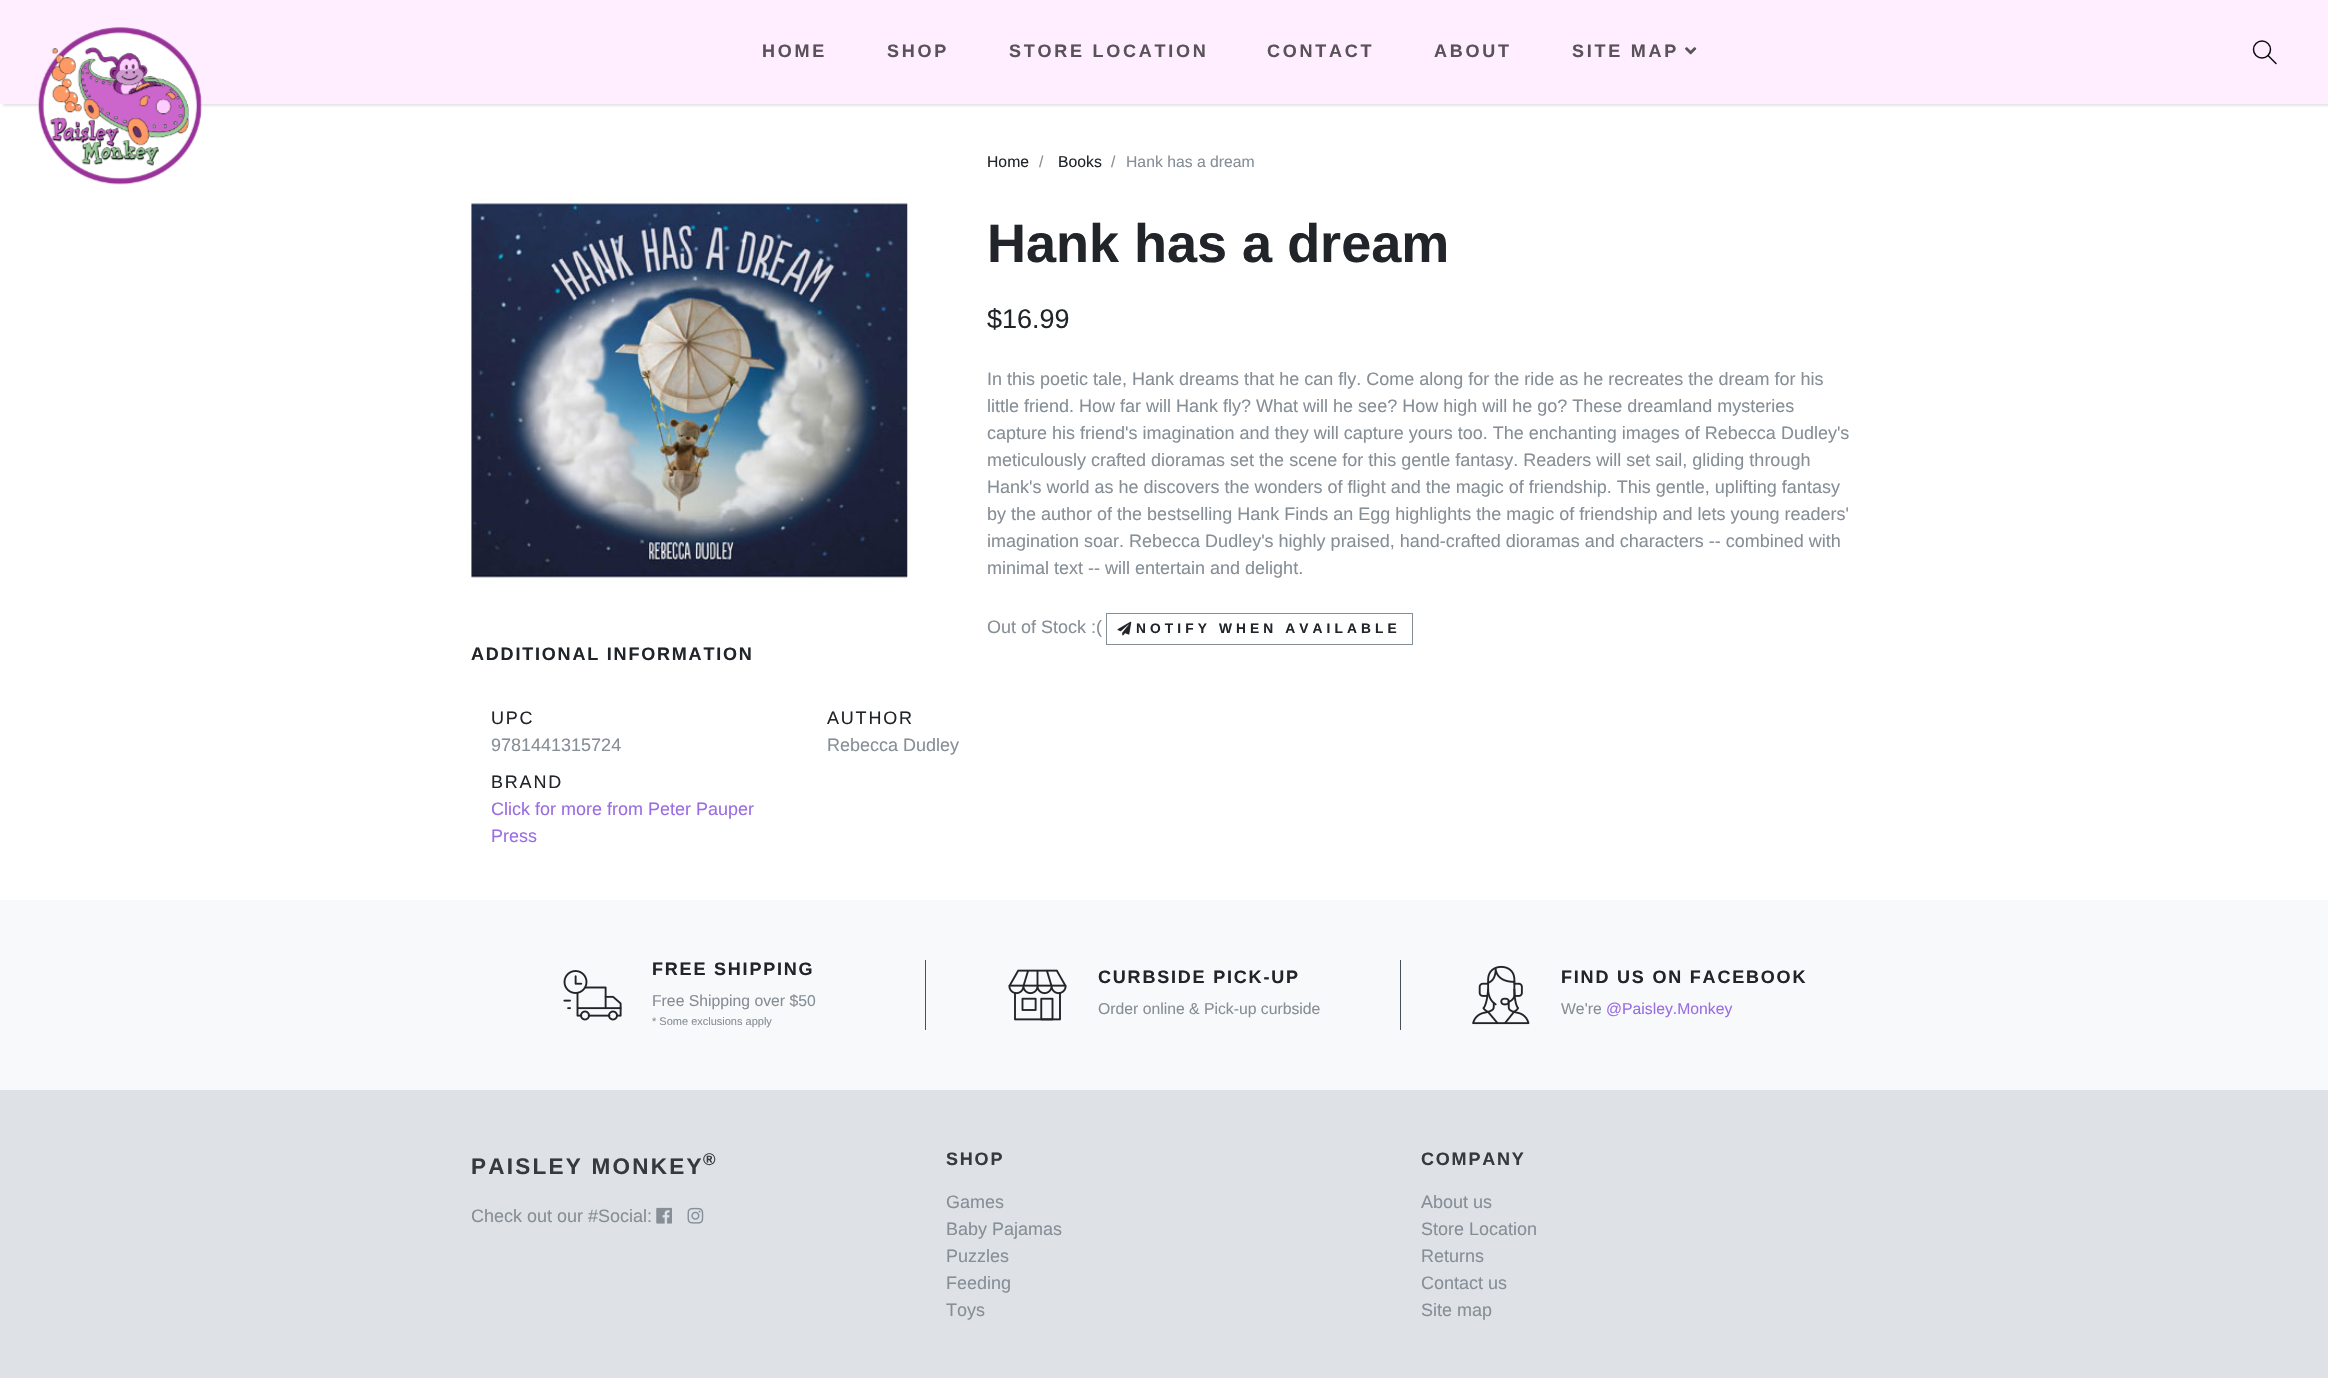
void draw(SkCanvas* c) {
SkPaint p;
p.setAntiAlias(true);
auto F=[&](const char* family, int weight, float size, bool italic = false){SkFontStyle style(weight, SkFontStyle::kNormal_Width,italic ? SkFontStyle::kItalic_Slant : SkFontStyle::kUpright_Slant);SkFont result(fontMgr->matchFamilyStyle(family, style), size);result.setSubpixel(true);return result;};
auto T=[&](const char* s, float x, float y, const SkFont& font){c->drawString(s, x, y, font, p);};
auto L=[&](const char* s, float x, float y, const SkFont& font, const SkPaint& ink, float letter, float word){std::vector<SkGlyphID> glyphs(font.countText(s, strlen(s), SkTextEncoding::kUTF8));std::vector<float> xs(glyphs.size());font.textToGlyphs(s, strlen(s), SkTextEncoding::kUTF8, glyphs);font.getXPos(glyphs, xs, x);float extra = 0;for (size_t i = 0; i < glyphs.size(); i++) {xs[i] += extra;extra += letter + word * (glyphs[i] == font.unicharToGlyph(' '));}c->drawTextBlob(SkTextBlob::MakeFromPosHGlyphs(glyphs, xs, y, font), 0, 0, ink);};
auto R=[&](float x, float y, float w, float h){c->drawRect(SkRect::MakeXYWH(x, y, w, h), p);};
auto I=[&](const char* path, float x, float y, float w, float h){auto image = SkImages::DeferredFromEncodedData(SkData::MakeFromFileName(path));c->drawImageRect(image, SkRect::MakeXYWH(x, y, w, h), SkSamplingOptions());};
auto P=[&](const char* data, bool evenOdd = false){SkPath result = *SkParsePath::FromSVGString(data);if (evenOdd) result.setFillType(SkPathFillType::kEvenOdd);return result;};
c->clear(0xffffffff);
p.setColor(0x1a000000);
p.setMaskFilter(SkMaskFilter::MakeBlur(kNormal_SkBlurStyle, 1));
c->drawRect(SkRect::MakeXYWH(3,3,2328,103),p);
p.setMaskFilter(nullptr);
p.setColor(0xffffeeff);
R(0,0,2328,104);
I("1.png",38,27,164,158);
auto f1 = F("Liberation Sans",700,18);
p.setColor(0xff595359);
L("HOME",762,57,f1,p,2.75,0);
L("SHOP",887,57,f1,p,2.75,0);
L("STORE LOCATION",1009,57,f1,p,2.75,0);
L("CONTACT",1267,57,f1,p,2.75,0);
L("ABOUT",1434,57,f1,p,2.75,0);
L("SITE MAP",1572,57,f1,p,2.75,0);
I("2.png",1685,47,12,8);
p.setStroke(true);
p.setStrokeWidth(1.5);
p.setStrokeCap(SkPaint::kRound_Cap);
p.setStrokeJoin(SkPaint::kRound_Join);
p.setColor(0xff0d0c0d);
c->drawPath(P("M2268 55.5l8 8"),p);
p.setStrokeCap(SkPaint::kButt_Cap);
p.setStrokeJoin(SkPaint::kMiter_Join);
p.setColor(0xf2000000);
c->drawCircle(2262,49.5,8.5,p);
I("3.png",471,198,437,380);
auto f2 = F("Liberation Sans",400,15.75);
p.setStroke(false);
p.setColor(0xff212529);
T("Home",987,167,f2);
p.setColor(0xff868e96);
T("/",1039,167,f2);
p.setColor(0xff212529);
T("Books",1058,167,f2);
p.setColor(0xff868e96);
T("/",1111,167,f2);
T("Hank has a dream",1126,167,f2);
auto f3 = F("Liberation Sans",700,54);
p.setColor(0xff212529);
T("Hank has a dream",987,262,f3);
auto f4 = F("Liberation Sans",400,27);
T("$16.99",987,328,f4);
auto f5 = F("Liberation Sans",400,18);
p.setColor(0xff868e96);
T("In this poetic tale, Hank dreams that he can fly. Come along for the ride as he recreates the dream for his",987,385,f5);
T("little friend. How far will Hank fly? What will he see? How high will he go? These dreamland mysteries",987,412,f5);
T("capture his friend's imagination and they will capture yours too. The enchanting images of Rebecca Dudley's",987,439,f5);
T("meticulously crafted dioramas set the scene for this gentle fantasy. Readers will set sail, gliding through",987,466,f5);
T("Hank's world as he discovers the wonders of flight and the magic of friendship. This gentle, uplifting fantasy",987,493,f5);
T("by the author of the bestselling Hank Finds an Egg highlights the magic of friendship and lets young readers'",987,520,f5);
T("imagination soar. Rebecca Dudley's highly praised, hand-crafted dioramas and characters -- combined with",987,547,f5);
T("minimal text -- will entertain and delight.",987,574,f5);
T("Out of Stock :(",987,633,f5);
p.setStroke(true);
p.setStrokeWidth(1);
c->drawRect(SkRect::MakeXYWH(1106.5,613.5,306,31),p);
I("4.png",1117,621,15,15);
auto f6 = F("Liberation Sans",700,13.75);
p.setStroke(false);
p.setColor(0xff212529);
L("NOTIFY WHEN AVAILABLE",1136,633,f6,p,4.1,0);
L("ADDITIONAL INFORMATION",471,660,f1,p,1.8,0);
L("UPC",491,724,f5,p,1.8,0);
p.setColor(0xff868e96);
T("9781441315724",491,751,f5);
p.setColor(0xff212529);
L("BRAND",491,788,f5,p,1.8,0);
p.setColor(0xff9a6ee2);
T("Click for more from Peter Pauper",491,815,f5);
T("Press",491,842,f5);
p.setColor(0xff212529);
L("AUTHOR",827,724,f5,p,1.8,0);
p.setColor(0xff868e96);
T("Rebecca Dudley",827,751,f5);
p.setColor(0xfff8f9fa);
R(0,900,2328,190);
p.setColor(0xff495057);
R(925,960,1,70);
I("5.png",563,970,59,51);
p.setColor(0xff212529);
L("FREE SHIPPING",652,975,f1,p,1.8,0);
p.setColor(0xff868e96);
T("Free Shipping over $50",652,1006,f2);
auto f7 = F("Liberation Sans",400,11);
T("* Some exclusions apply",652,1025,f7);
p.setColor(0xff495057);
R(1400,960,1,70);
I("6.png",1008,969,59,52);
p.setColor(0xff212529);
L("CURBSIDE PICK-UP",1098,983,f1,p,1.8,0);
p.setColor(0xff868e96);
T("Order online & Pick-up curbside",1098,1014,f2);
I("7.png",1472,965,58,60);
p.setColor(0xff212529);
L("FIND US ON FACEBOOK",1561,983,f1,p,1.8,0);
p.setColor(0xff868e96);
T("We're",1561,1014,f2);
p.setColor(0xff9a6ee2);
T("@Paisley.Monkey",1606,1014,f2);
p.setColor(0xffdee2e6);
R(0,1090,2328,288);
auto f8 = F("Liberation Sans",700,22.5);
p.setColor(0xff343a40);
L("PAISLEY MONKEY",471,1174,f8,p,2.25,0);
auto f9 = F("Liberation Sans",700,17);
L("®",703,1165,f9,p,2.25,0);
p.setColor(0xff868e96);
T("Check out our #Social:",471,1222,f5);
I("8.png",656,1207,16,17);
I("9.png",687,1207,17,17);
p.setColor(0xff343a40);
L("SHOP",946,1165,f1,p,1.8,0);
p.setColor(0xff868e96);
T("Games",946,1208,f5);
T("Baby Pajamas",946,1235,f5);
T("Puzzles",946,1262,f5);
T("Feeding",946,1289,f5);
T("Toys",946,1316,f5);
p.setColor(0xff343a40);
L("COMPANY",1421,1165,f1,p,1.8,0);
p.setColor(0xff868e96);
T("About us",1421,1208,f5);
T("Store Location",1421,1235,f5);
T("Returns",1421,1262,f5);
T("Contact us",1421,1289,f5);
T("Site map",1421,1316,f5);
}
